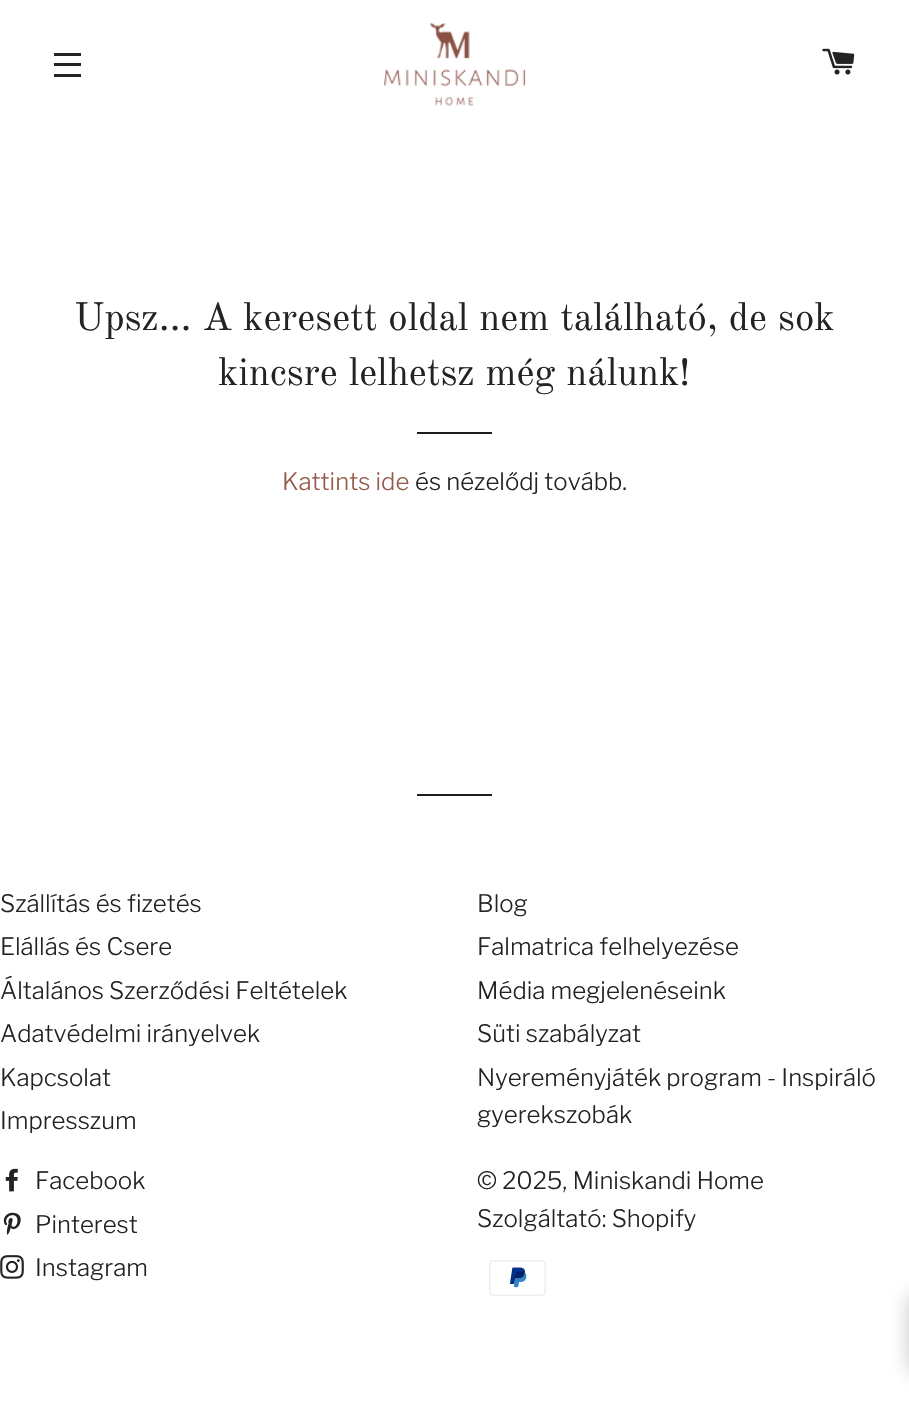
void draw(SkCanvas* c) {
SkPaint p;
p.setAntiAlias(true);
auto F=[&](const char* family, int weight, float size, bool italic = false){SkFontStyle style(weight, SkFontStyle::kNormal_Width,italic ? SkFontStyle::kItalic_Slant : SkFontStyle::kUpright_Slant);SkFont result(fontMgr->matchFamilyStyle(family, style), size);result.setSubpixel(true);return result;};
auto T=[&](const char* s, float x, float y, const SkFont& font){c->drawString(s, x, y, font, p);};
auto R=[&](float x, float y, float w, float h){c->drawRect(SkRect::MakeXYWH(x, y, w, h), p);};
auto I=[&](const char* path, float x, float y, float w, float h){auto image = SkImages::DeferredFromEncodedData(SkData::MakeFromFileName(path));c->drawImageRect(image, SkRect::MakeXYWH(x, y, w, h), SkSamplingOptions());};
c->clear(0xffffffff);
p.setColor(0xff222323);
R(54,53,27,3);
R(54,63,27,3);
R(54,74,27,3);
I("1.png",384,23,142,83);
I("2.png",822,48,33,27);
auto f1 = F("Old Standard TT",400,39);
T("Upsz… A keresett oldal nem található, de sok",74,330,f1);
T("kincsre lelhetsz még nálunk!",218,385,f1);
p.setColor(0xff1c1d1d);
R(417,432,75,2);
auto f2 = F("Libre Franklin",300,24);
p.setColor(0xff955947);
T("Kattints ide",282,490,f2);
p.setColor(0xff222323);
T("és nézelődj tovább.",415,490,f2);
p.setColor(0xff1c1d1d);
R(417,794,75,2);
p.setColor(0xff222323);
T("Szállítás és fizetés",0,912,f2);
T("Elállás és Csere",0,955,f2);
T("Általános Szerződési Feltételek",0,999,f2);
T("Adatvédelmi irányelvek",0,1042,f2);
T("Kapcsolat",0,1086,f2);
T("Impresszum",0,1129,f2);
T("Blog",477,912,f2);
T("Falmatrica felhelyezése",477,955,f2);
T("Média megjelenéseink",477,999,f2);
T("Süti szabályzat",477,1042,f2);
T("Nyereményjáték program - Inspiráló",477,1086,f2);
T("gyerekszobák",477,1123,f2);
I("3.png",5,1168,13,24);
T("Facebook",35,1189,f2);
I("4.png",3,1212,18,23);
T("Pinterest",35,1233,f2);
I("5.png",0,1255,24,24);
T("Instagram",35,1276,f2);
T("© 2025, Miniskandi Home",477,1189,f2);
T("Szolgáltató: Shopify",477,1227,f2);
I("6.png",489,1260,57,36);
p.setColor(0x80757575);
p.setMaskFilter(SkMaskFilter::MakeBlur(kNormal_SkBlurStyle, 10.5));
c->drawRect(SkRect::MakeXYWH(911,1296,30,75),p);
p.setMaskFilter(nullptr);
}
